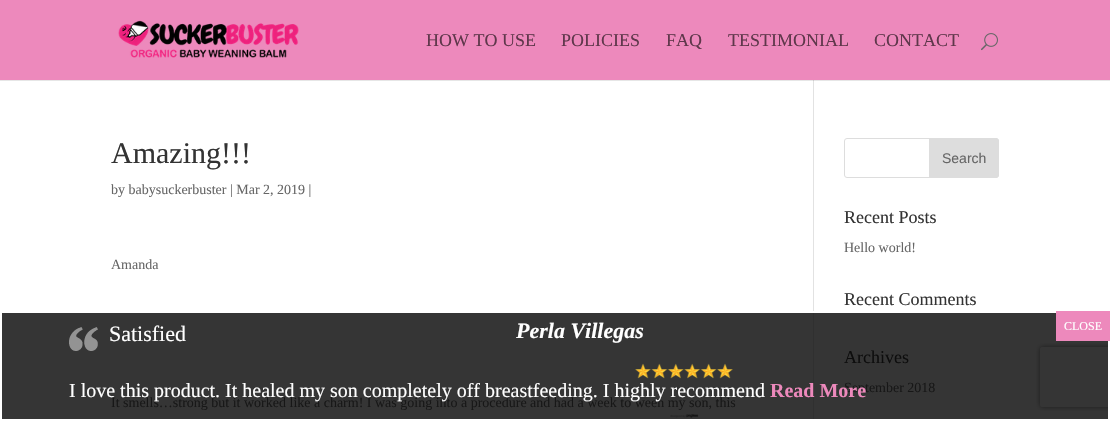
void draw(SkCanvas* c) {
SkPaint p;
p.setAntiAlias(true);
auto F=[&](const char* family, int weight, float size, bool italic = false){SkFontStyle style(weight, SkFontStyle::kNormal_Width,italic ? SkFontStyle::kItalic_Slant : SkFontStyle::kUpright_Slant);SkFont result(fontMgr->matchFamilyStyle(family, style), size);result.setSubpixel(true);return result;};
auto T=[&](const char* s, float x, float y, const SkFont& font){c->drawString(s, x, y, font, p);};
auto R=[&](float x, float y, float w, float h){c->drawRect(SkRect::MakeXYWH(x, y, w, h), p);};
auto I=[&](const char* path, float x, float y, float w, float h){auto image = SkImages::DeferredFromEncodedData(SkData::MakeFromFileName(path));c->drawImageRect(image, SkRect::MakeXYWH(x, y, w, h), SkSamplingOptions());};
auto P=[&](const char* data, bool evenOdd = false){SkPath result = *SkParsePath::FromSVGString(data);if (evenOdd) result.setFillType(SkPathFillType::kEvenOdd);return result;};
c->clear(0xffffffff);
p.setColor(0xff353535);
R(2,313,1106,106);
p.setColor(0xffe6e6e6);
R(0,80,1110,1);
p.setColor(0xffed89bc);
R(0,0,1110,80);
I("1.png",118,20,181,38);
auto f1 = F("Liberation Serif",400,18);
p.setColor(0xff5f374b);
T("HOW TO USE",426,46,f1);
T("POLICIES",561,46,f1);
T("FAQ",666,46,f1);
T("TESTIMONIAL",728,46,f1);
T("CONTACT",874,46,f1);
I("2.png",981,33,17,18);
p.setColor(0xffe2e2e2);
R(813,80,1,231);
p.setColor(0xff303030);
R(813,311,1,110);
p.setColor(0xffcbcbcb);
R(813,80,1,1);
auto f2 = F("Liberation Serif",400,30);
p.setColor(0xff333333);
T("Amazing!!!",111,163,f2);
auto f3 = F("Liberation Serif",400,14);
p.setColor(0xff666666);
T("by babysuckerbuster | Mar 2, 2019 |",111,194,f3);
T("Amanda",111,269,f3);
p.setColor(0xff171717);
T("It smells…strong but it worked like a charm! I was going into a procedure and had a week to ween my son, this",111,407,f3);
p.setStroke(true);
p.setStrokeWidth(1);
p.setColor(0xffdddddd);
c->drawRoundRect(SkRect::MakeXYWH(844.5,138.5,154,39),2.5,2.5,p);
p.setStroke(false);
c->drawPath(P("M929.5 138.5h66.5c1.5 0 2.5 1 2.5 2.5v34c0 1.5-1 2.5-2.5 2.5h-66.5z"),p);
p.setStroke(true);
c->drawPath(P("M929.5 138.5h66.5c1.5 0 2.5 1 2.5 2.5v34c0 1.5-1 2.5-2.5 2.5h-66.5z"),p);
auto f4 = F("Liberation Sans",400,14);
p.setStroke(false);
p.setColor(0xff666666);
T("Search",942,163,f4);
p.setColor(0xff333333);
T("Recent Posts",844,223,f1);
p.setColor(0xff666666);
T("Hello world!",844,252,f3);
p.setColor(0xff333333);
T("Recent Comments",844,305,f1);
p.setColor(0xff0d0d0d);
T("Archives",844,363,f1);
p.setColor(0xff171717);
T("September 2018",844,392,f3);
c->save();
c->clipPath(P("M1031 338h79v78h-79zm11 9h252c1 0 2 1 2 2v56c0 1-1 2-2 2h-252c-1 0-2-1-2-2v-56c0-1 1-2 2-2z",true),true);
p.setColor(0xff1c1c1c);
p.setMaskFilter(SkMaskFilter::MakeBlur(kNormal_SkBlurStyle, 2.5));
c->drawRoundRect(SkRect::MakeXYWH(1040,347,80,60),2,2,p);
p.setMaskFilter(nullptr);
c->restore();
p.setStroke(true);
p.setStrokeWidth(2);
p.setColor(0xffffffff);
c->drawRect(SkRect::MakeXYWH(1,312,1108,108),p);
auto f5 = F("Liberation Serif",700,22,true);
p.setStroke(false);
T("Perla Villegas",516,338,f5);
auto f6 = F("Liberation Serif",400,20);
T("I love this product. It healed my son completely off breastfeeding. I highly recommend",69,397,f6);
I("3.png",635,363,98,55);
auto f7 = F("Liberation Serif",700,20);
p.setColor(0xffed89bc);
T("Read More",770,397,f7);
I("4.png",69,327,29,24);
auto f8 = F("Liberation Serif",400,22);
p.setColor(0xffffffff);
T("Satisfied",109,341,f8);
p.setColor(0xffed89bc);
R(1056,311,54,30);
auto f9 = F("Liberation Serif",400,12);
p.setColor(0xffffffff);
T("CLOSE",1064,330,f9);
}
